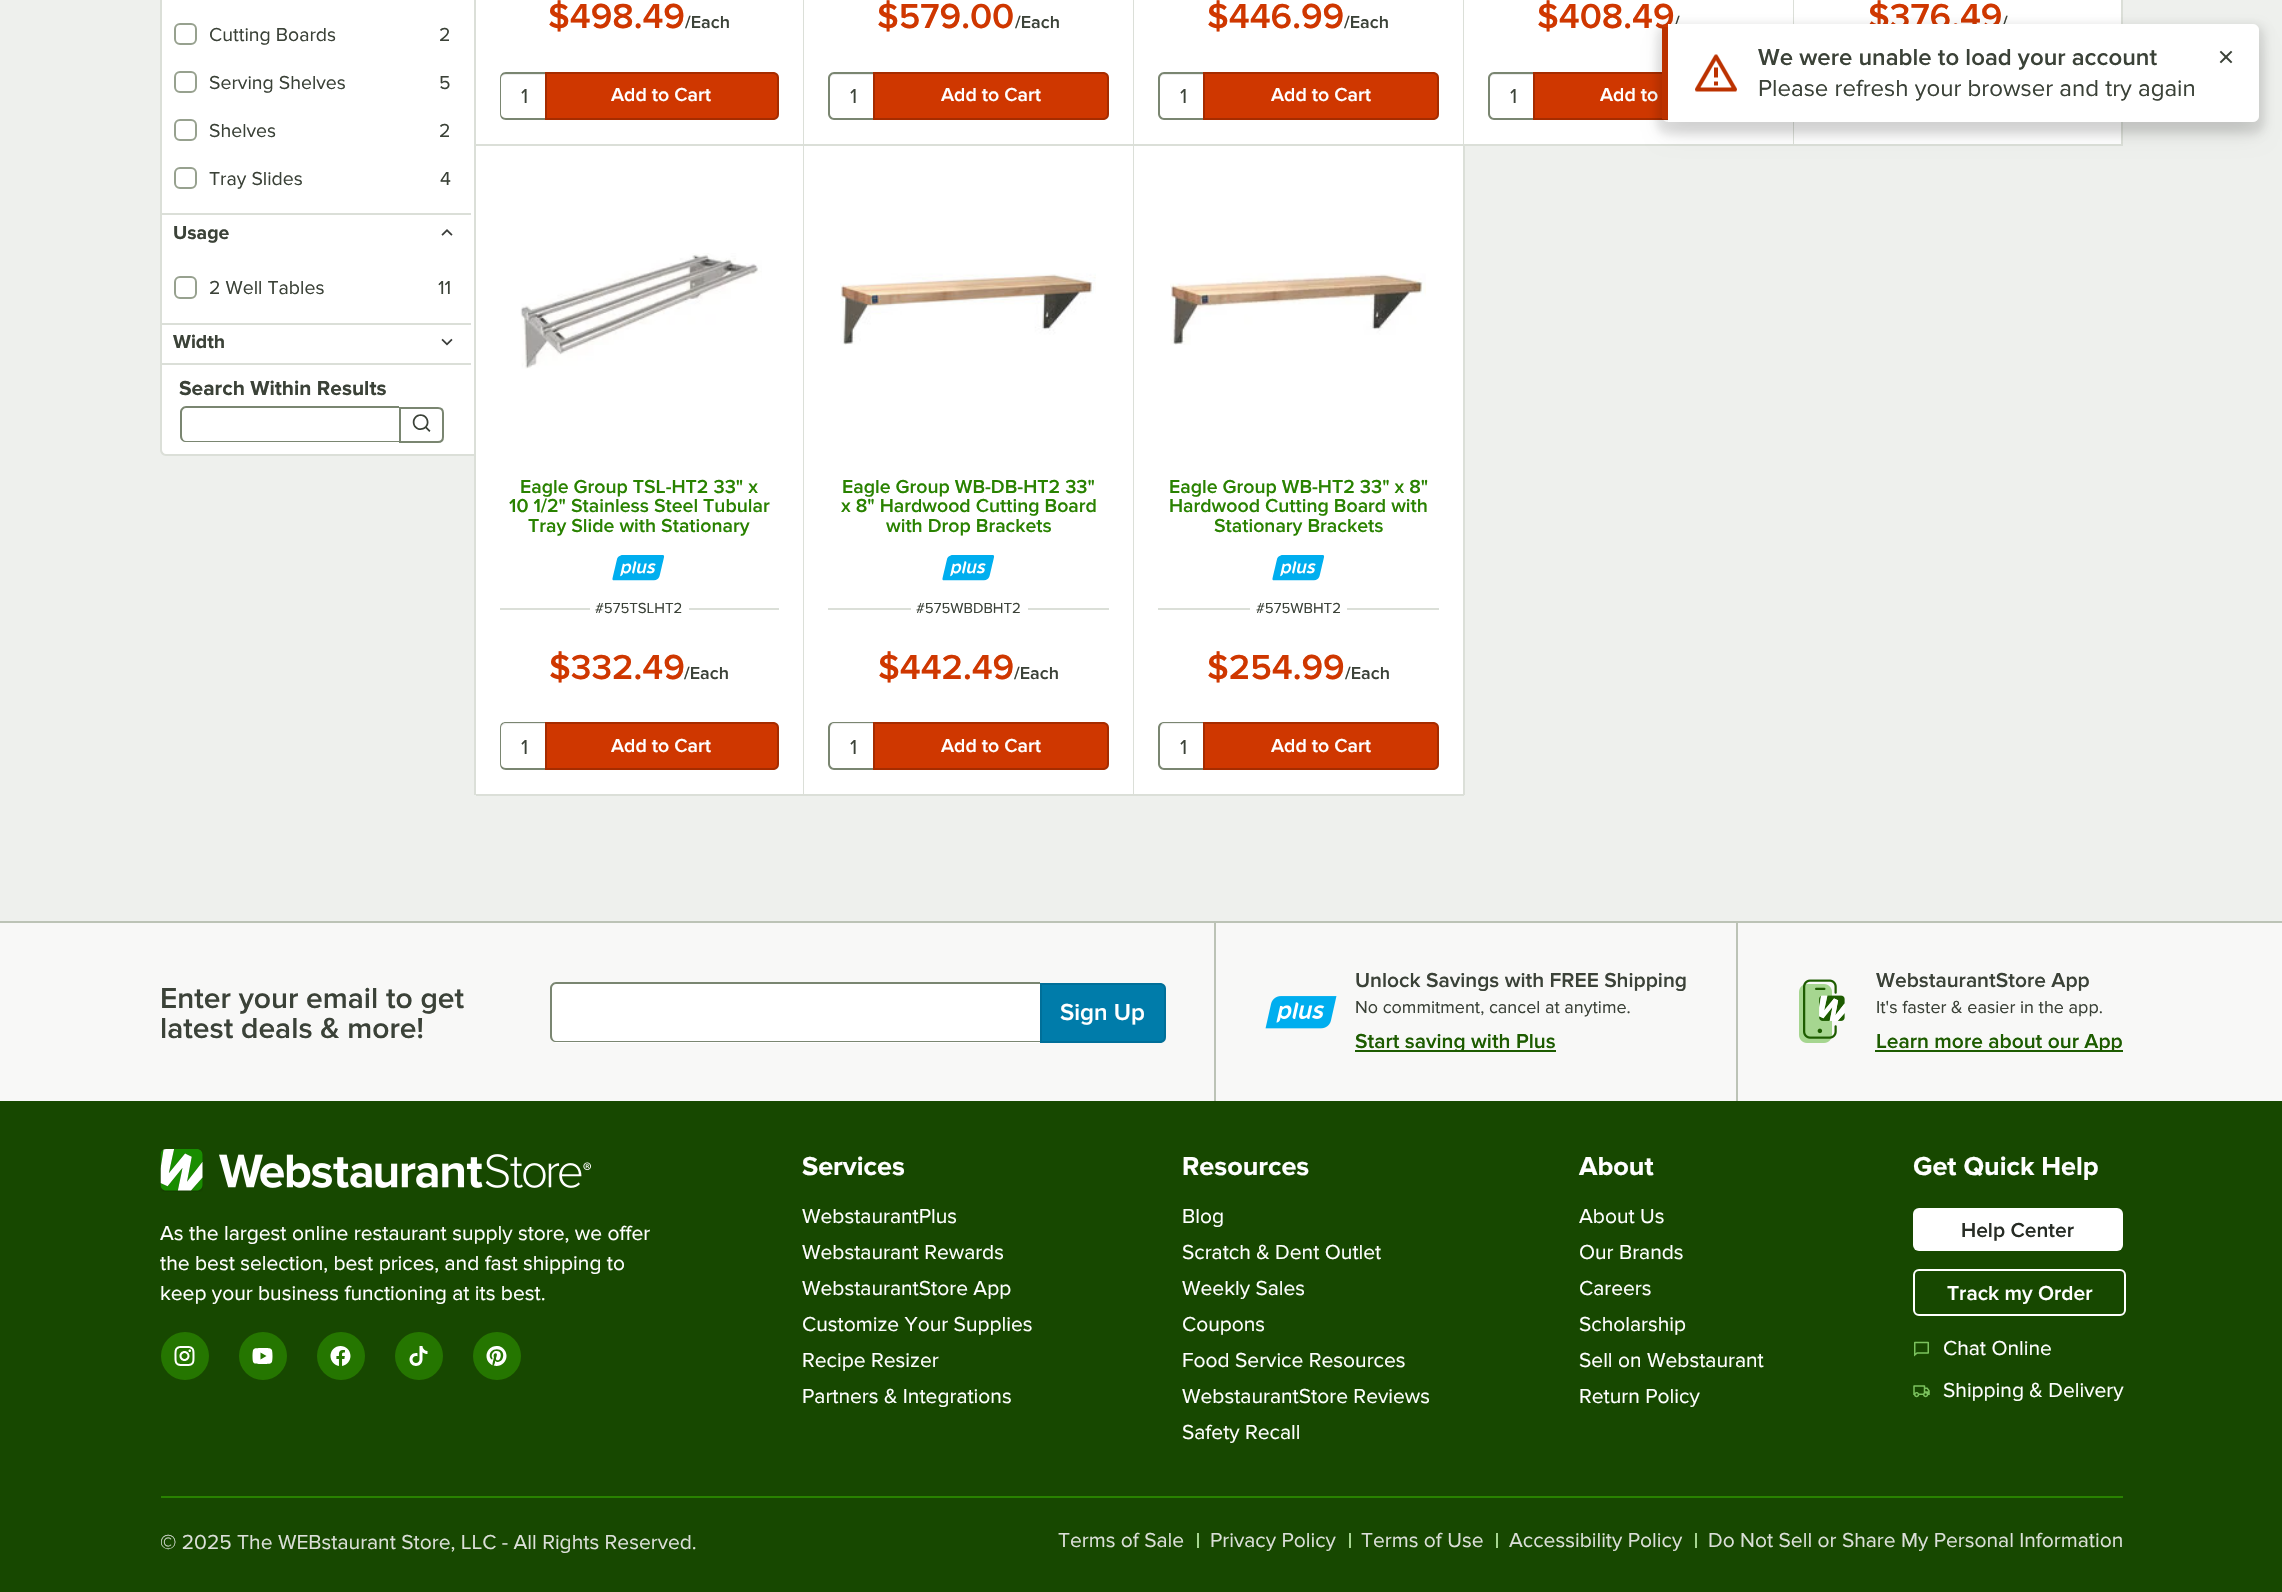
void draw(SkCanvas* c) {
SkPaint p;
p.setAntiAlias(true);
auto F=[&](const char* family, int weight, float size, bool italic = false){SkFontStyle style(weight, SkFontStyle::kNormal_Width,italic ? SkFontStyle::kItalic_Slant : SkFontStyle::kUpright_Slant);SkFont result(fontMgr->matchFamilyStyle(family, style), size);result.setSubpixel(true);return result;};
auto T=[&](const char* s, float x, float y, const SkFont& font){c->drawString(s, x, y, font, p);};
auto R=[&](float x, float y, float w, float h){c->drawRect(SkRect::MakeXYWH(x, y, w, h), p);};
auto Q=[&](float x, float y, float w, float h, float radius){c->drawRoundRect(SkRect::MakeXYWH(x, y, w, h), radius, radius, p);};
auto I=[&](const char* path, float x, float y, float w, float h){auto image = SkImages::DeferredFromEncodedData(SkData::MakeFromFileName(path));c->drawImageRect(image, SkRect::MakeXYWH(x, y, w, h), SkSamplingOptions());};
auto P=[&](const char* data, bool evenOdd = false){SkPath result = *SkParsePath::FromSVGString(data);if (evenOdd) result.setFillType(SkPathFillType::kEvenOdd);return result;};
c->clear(0xffeef0ed);
p.setColor(0xffffffff);
c->drawPath(P("M162-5h312v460h-307c-3 0-5-2-5-5z"),p);
p.setColor(0xffdbdfd8);
c->drawPath(P("M160-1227h314v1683h-308c-3 0-6-3-6-6zm2 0h312v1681h-308c-2 0-4-2-4-4z",true),p);
p.setStroke(true);
p.setStrokeWidth(2);
p.setColor(0xff97a18f);
c->drawRoundRect(SkRect::MakeXYWH(175,24,21,20),5,5,p);
auto f1 = F("Proxima Nova",400,19.5);
p.setStroke(false);
p.setColor(0xff3b4238);
T("Cutting Boards",209,41,f1);
T("2",439,41,f1);
p.setStroke(true);
p.setColor(0xff97a18f);
c->drawRoundRect(SkRect::MakeXYWH(175,72,21,20),5,5,p);
p.setStroke(false);
p.setColor(0xff3b4238);
T("Serving Shelves",209,89,f1);
T("5",439,89,f1);
p.setStroke(true);
p.setColor(0xff97a18f);
c->drawRoundRect(SkRect::MakeXYWH(175,120,21,20),5,5,p);
p.setStroke(false);
p.setColor(0xff3b4238);
T("Shelves",209,137,f1);
T("2",439,137,f1);
p.setStroke(true);
p.setColor(0xff97a18f);
c->drawRoundRect(SkRect::MakeXYWH(175,168,21,20),5,5,p);
p.setStroke(false);
p.setColor(0xff3b4238);
T("Tray Slides",209,185,f1);
T("4",440,185,f1);
p.setColor(0xffdbdfd8);
R(162,213,309,2);
auto f2 = F("Proxima Nova",700,19.5);
p.setColor(0xff3b4238);
T("Usage",173,239,f2);
I("1.png",441,229,12,7);
p.setStroke(true);
p.setColor(0xff97a18f);
c->drawRoundRect(SkRect::MakeXYWH(175,277,21,21),5,5,p);
p.setStroke(false);
p.setColor(0xff3b4238);
T("2 Well Tables",209,294,f1);
T("11",438,294,f1);
p.setColor(0xffdbdfd8);
R(162,323,309,2);
p.setColor(0xff3b4238);
T("Width",173,348,f2);
I("2.png",441,338,12,8);
p.setColor(0xffdbdfd8);
R(162,363,309,2);
auto f3 = F("Proxima Nova",700,21);
p.setColor(0xff3b4238);
T("Search Within Results",179,395,f3);
p.setColor(0xff7a8671);
c->drawPath(P("M186 406h213v36h-213c-3 0-6-2-6-6v-24c0-3 3-6 6-6zm0 2h213v33h-213c-2 0-4-2-4-5v-24c0-2 2-4 4-4z",true),p);
p.setStroke(true);
c->drawPath(P("M400 408h38c3 0 5 2 5 5v24c0 3-2 5-5 5h-38z"),p);
I("3.png",412,414,19,18);
p.setStroke(false);
p.setColor(0xffdbdfd8);
R(474,0,2,795);
p.setColor(0xffffffff);
R(476,0,327,144);
p.setColor(0xffdbdfd8);
R(803,0,1,795);
R(476,144,328,2);
auto f4 = F("Proxima Nova",600,36);
p.setColor(0xffcf3700);
T("$498.49",548,28,f4);
auto f5 = F("Proxima Nova",600,18);
p.setColor(0xff3b4238);
T("/Each",685,28,f5);
p.setColor(0xffececec);
c->drawPath(P("M506 75h43v-1h-43c-3 0-5 2-5 5v1c0-3 2-5 5-5z"),p);
p.setColor(0xff7a8671);
c->drawPath(P("M506 72h43v48h-43c-4 0-6-3-6-6v-36c0-3 2-6 6-6zm0 2h43v44h-43c-3 0-5-2-5-4v-36c0-2 2-4 5-4z",true),p);
auto f6 = F("Proxima Nova",400,21);
p.setColor(0xff3b4238);
T("1",521,103,f6);
p.setColor(0xffcf3700);
c->drawPath(P("M545 72h228c3.5 0 6 2.5 6 6v36c0 3.5-2.5 6-6 6h-228z"),p);
p.setStroke(true);
p.setColor(0x33000000);
c->drawPath(P("M546 73h227c3 0 5 2 5 5v36c0 3-2 5-5 5h-227z"),p);
auto f7 = F("Proxima Nova",600,19.5);
p.setStroke(false);
p.setColor(0xffffffff);
T("Add to Cart",611,101,f7);
R(804,0,329,144);
p.setColor(0xffdbdfd8);
R(1133,0,1,795);
R(804,144,330,2);
p.setColor(0xffcf3700);
T("$579.00",877,28,f4);
p.setColor(0xff3b4238);
T("/Each",1015,28,f5);
p.setColor(0xffececec);
c->drawPath(P("M834 75h44v-1h-43c-3 0-5 2-5 5v1c0-3 2-5 4-5z"),p);
p.setColor(0xff7a8671);
c->drawPath(P("M834 72h44v48h-44c-3 0-6-3-6-6v-36c0-3 3-6 6-6zm0 2h44v44h-44c-2 0-4-2-4-4v-36c0-2 2-4 4-4z",true),p);
p.setColor(0xff3b4238);
T("1",850,103,f6);
p.setColor(0xffcf3700);
c->drawPath(P("M873 72h230c3.5 0 6 2.5 6 6v36c0 3.5-2.5 6-6 6h-230z"),p);
p.setStroke(true);
p.setColor(0x33000000);
c->drawPath(P("M874 73h229c3 0 5 2 5 5v36c0 3-2 5-5 5h-229z"),p);
p.setStroke(false);
p.setColor(0xffffffff);
T("Add to Cart",941,101,f7);
R(1134,0,329,144);
p.setColor(0xffdbdfd8);
R(1463,0,1,146);
R(1134,144,330,2);
p.setColor(0xffcf3700);
T("$446.99",1207,28,f4);
p.setColor(0xff3b4238);
T("/Each",1344,28,f5);
p.setColor(0xffececec);
c->drawPath(P("M1164 75h44v-1h-43c-3 0-5 2-5 5v1c0-3 2-5 4-5z"),p);
p.setColor(0xff7a8671);
c->drawPath(P("M1164 72h44v48h-44c-3 0-6-3-6-6v-36c0-3 3-6 6-6zm0 2h44v44h-44c-2 0-4-2-4-4v-36c0-2 2-4 4-4z",true),p);
p.setColor(0xff3b4238);
T("1",1180,103,f6);
p.setColor(0xffcf3700);
c->drawPath(P("M1203 72h230c3.5 0 6 2.5 6 6v36c0 3.5-2.5 6-6 6h-230z"),p);
p.setStroke(true);
p.setColor(0x33000000);
c->drawPath(P("M1204 73h229c3 0 5 2 5 5v36c0 3-2 5-5 5h-229z"),p);
p.setStroke(false);
p.setColor(0xffffffff);
T("Add to Cart",1271,101,f7);
R(1464,0,329,144);
p.setColor(0xffdbdfd8);
R(1793,0,1,146);
R(1464,144,330,2);
p.setColor(0xffcf3700);
T("$408.49",1537,28,f4);
p.setColor(0xff3b4238);
T("/",1674,28,f5);
p.setColor(0xffececec);
c->drawPath(P("M1494 75h44v-1h-43c-3 0-5 2-5 5v1c0-3 2-5 4-5z"),p);
p.setColor(0xff7a8671);
c->drawPath(P("M1494 72h44v48h-44c-3 0-6-3-6-6v-36c0-3 3-6 6-6zm0 2h44v44h-44c-2 0-4-2-4-4v-36c0-2 2-4 4-4z",true),p);
p.setColor(0xff3b4238);
T("1",1510,103,f6);
p.setColor(0xffcf3700);
R(1533,72,135,48);
p.setStroke(true);
p.setColor(0x33000000);
c->drawRect(SkRect::MakeXYWH(1534,73,234,46),p);
p.setStroke(false);
p.setColor(0xffffffff);
T("Add to",1600,101,f7);
R(1794,0,327,144);
p.setColor(0xffdbdfd8);
R(2121,0,2,146);
R(1794,144,329,2);
p.setColor(0xffcf3700);
T("$376.49",1868,28,f4);
p.setColor(0xff3b4238);
T("/",2002,28,f5);
p.setColor(0xffffffff);
R(476,146,327,648);
p.setColor(0xffdbdfd8);
R(476,794,658,2);
I("4.png",520,253,242,116);
p.setColor(0xff298200);
T("Eagle Group TSL-HT2 33\" x",520,493,f7);
T("10 1/2\" Stainless Steel Tubular",509,512,f7);
T("Tray Slide with Stationary",528,532,f7);
I("5.png",612,555,53,26);
p.setColor(0xffdbdfd8);
R(500,608,279,2);
p.setColor(0xffffffff);
R(590,608,99,2);
auto f8 = F("Proxima Nova",400,15);
p.setColor(0xff3b4238);
T("#575TSLHT2",595,613,f8);
p.setColor(0xffcf3700);
T("$332.49",549,679,f4);
p.setColor(0xff3b4238);
T("/Each",684,679,f5);
p.setColor(0xffececec);
c->drawPath(P("M506 724h43v-1h-43c-3 0-5 2-5 5v1c0-2 2-5 5-5z"),p);
p.setColor(0xff7a8671);
c->drawPath(P("M506 722h43v48h-43c-4 0-6-3-6-6v-36c0-4 2-6 6-6zm0 1h43v45h-43c-3 0-5-2-5-4v-36c0-3 2-5 5-5z",true),p);
p.setColor(0xff3b4238);
T("1",521,754,f6);
p.setColor(0xffcf3700);
c->drawPath(P("M545 722h228c3.5 0 6 2.5 6 6v36c0 3.5-2.5 6-6 6h-228z"),p);
p.setStroke(true);
p.setColor(0x33000000);
c->drawPath(P("M546 723h227c3 0 5 2 5 5v36c0 3-2 5-5 5h-227z"),p);
p.setStroke(false);
p.setColor(0xffffffff);
T("Add to Cart",611,752,f7);
R(804,146,329,648);
I("6.png",840,273,256,72);
p.setColor(0xff298200);
T("Eagle Group WB-DB-HT2 33\"",842,493,f7);
T("x 8\" Hardwood Cutting Board",841,512,f7);
T("with Drop Brackets",886,532,f7);
I("5.png",942,555,53,26);
p.setColor(0xffdbdfd8);
R(828,608,281,2);
p.setColor(0xffffffff);
R(911,608,117,2);
p.setColor(0xff3b4238);
T("#575WBDBHT2",916,613,f8);
p.setColor(0xffcf3700);
T("$442.49",878,679,f4);
p.setColor(0xff3b4238);
T("/Each",1014,679,f5);
p.setColor(0xffececec);
c->drawPath(P("M834 724h44v-1h-43c-3 0-5 2-5 5v1c0-2 2-5 4-5z"),p);
p.setColor(0xff7a8671);
c->drawPath(P("M834 722h44v48h-44c-3 0-6-3-6-6v-36c0-4 3-6 6-6zm0 1h44v45h-44c-2 0-4-2-4-4v-36c0-3 2-5 4-5z",true),p);
p.setColor(0xff3b4238);
T("1",850,754,f6);
p.setColor(0xffcf3700);
c->drawPath(P("M873 722h230c3.5 0 6 2.5 6 6v36c0 3.5-2.5 6-6 6h-230z"),p);
p.setStroke(true);
p.setColor(0x33000000);
c->drawPath(P("M874 723h229c3 0 5 2 5 5v36c0 3-2 5-5 5h-229z"),p);
p.setStroke(false);
p.setColor(0xffffffff);
T("Add to Cart",941,752,f7);
R(1134,146,329,648);
p.setColor(0xffdbdfd8);
R(1463,146,2,649);
R(1134,794,330,2);
I("7.png",1170,273,256,72);
p.setColor(0xff298200);
T("Eagle Group WB-HT2 33\" x 8\"",1169,493,f7);
T("Hardwood Cutting Board with",1169,512,f7);
T("Stationary Brackets",1214,532,f7);
I("5.png",1272,555,53,26);
p.setColor(0xffdbdfd8);
R(1158,608,281,2);
p.setColor(0xffffffff);
R(1250,608,97,2);
p.setColor(0xff3b4238);
T("#575WBHT2",1256,613,f8);
p.setColor(0xffcf3700);
T("$254.99",1207,679,f4);
p.setColor(0xff3b4238);
T("/Each",1345,679,f5);
p.setColor(0xffececec);
c->drawPath(P("M1164 724h44v-1h-43c-3 0-5 2-5 5v1c0-2 2-5 4-5z"),p);
p.setColor(0xff7a8671);
c->drawPath(P("M1164 722h44v48h-44c-3 0-6-3-6-6v-36c0-4 3-6 6-6zm0 1h44v45h-44c-2 0-4-2-4-4v-36c0-3 2-5 4-5z",true),p);
p.setColor(0xff3b4238);
T("1",1180,754,f6);
p.setColor(0xffcf3700);
c->drawPath(P("M1203 722h230c3.5 0 6 2.5 6 6v36c0 3.5-2.5 6-6 6h-230z"),p);
p.setStroke(true);
p.setColor(0x33000000);
c->drawPath(P("M1204 723h229c3 0 5 2 5 5v36c0 3-2 5-5 5h-229z"),p);
p.setStroke(false);
p.setColor(0xffffffff);
T("Add to Cart",1271,752,f7);
p.setColor(0x1a000000);
p.setMaskFilter(SkMaskFilter::MakeBlur(kNormal_SkBlurStyle, 11));
c->drawRoundRect(SkRect::MakeXYWH(1667,44,588,88),1.5,1.5,p);
p.setMaskFilter(nullptr);
c->save();
c->clipPath(P("M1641 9h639v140h-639zm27 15h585c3.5 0 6 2.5 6 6v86c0 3.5-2.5 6-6 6h-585c-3.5 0-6-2.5-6-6v-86c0-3.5 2.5-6 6-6z",true),true);
p.setMaskFilter(SkMaskFilter::MakeBlur(kNormal_SkBlurStyle, 4.5));
c->drawRoundRect(SkRect::MakeXYWH(1656,24,609,110),12,12,p);
p.setMaskFilter(nullptr);
c->restore();
p.setColor(0xffffffff);
c->drawPath(P("M1668 24h585c3 0 6 3 6 6v86c0 3-3 6-6 6h-585z"),p);
p.setColor(0xffbc3200);
R(1662,27,6,92);
I("8.png",1695,54,42,38);
auto f9 = F("Proxima Nova",600,24);
p.setColor(0xff3b4238);
T("We were unable to load your account",1758,65,f9);
auto f10 = F("Proxima Nova",400,24);
T("Please refresh your browser and try again",1758,96,f10);
I("9.png",2219,50,14,14);
p.setColor(0xfff8f8f7);
R(0,923,2282,178);
p.setColor(0xffbcc3b6);
R(0,921,2282,2);
R(1214,923,2,178);
auto f11 = F("Proxima Nova",600,30);
p.setColor(0xff3b4238);
T("Enter your email to get",160,1008,f11);
T("latest deals & more!",160,1038,f11);
p.setColor(0xffffffff);
c->drawPath(P("M557 983h483v60h-483c-3.5 0-6-2.5-6-6v-48c0-3.5 2.5-6 6-6z"),p);
p.setColor(0xff7a8671);
c->drawPath(P("M556 982h484v60h-484c-3 0-6-2-6-6v-48c0-3 3-6 6-6zm0 2h484v57h-484c-2 0-4-2-4-5v-48c0-2 2-4 4-4z",true),p);
p.setColor(0xff007caa);
c->drawPath(P("M1040 983h120c3.5 0 6 2.5 6 6v48c0 3.5-2.5 6-6 6h-120z"),p);
p.setStroke(true);
p.setColor(0x1a000000);
c->drawPath(P("M1041 984h119c3 0 5 2 5 5v48c0 3-2 5-5 5h-119z"),p);
p.setStroke(false);
p.setColor(0xffffffff);
T("Sign Up",1060,1020,f9);
I("10.png",1265,996,72,33);
auto f12 = F("Proxima Nova",600,21);
p.setColor(0xff3b4238);
T("Unlock Savings with FREE Shipping",1355,987,f12);
auto f13 = F("Proxima Nova",400,18);
T("No commitment, cancel at anytime.",1355,1013,f13);
p.setColor(0xff1d5c00);
R(1355,1050,201,2);
T("Start saving with Plus",1355,1048,f12);
p.setColor(0xffbcc3b6);
R(1736,923,2,178);
I("11.png",1799,979,46,64);
p.setColor(0xff3b4238);
T("WebstaurantStore App",1876,987,f12);
T("It's faster & easier in the app.",1876,1013,f13);
p.setColor(0xff1d5c00);
R(1875,1050,248,2);
T("Learn more about our App",1876,1048,f12);
p.setColor(0xff174800);
R(0,1101,2282,491);
I("12.png",160,1149,43,43);
I("13.png",219,1154,372,34);
p.setColor(0xffffffff);
T("As the largest online restaurant supply store, we offer",160,1240,f6);
T("the best selection, best prices, and fast shipping to",160,1270,f6);
T("keep your business functioning at its best.",160,1300,f6);
p.setColor(0xff257600);
c->drawCircle(185,1356,24,p);
I("14.png",174,1346,21,20);
c->drawCircle(263,1356,24,p);
I("15.png",252,1348,21,16);
c->drawCircle(341,1356,24,p);
I("16.png",330,1346,21,20);
c->drawCircle(419,1356,24,p);
I("17.png",409,1346,19,20);
c->drawCircle(497,1356,24,p);
I("18.png",486,1346,21,20);
auto f14 = F("Proxima Nova",700,27);
p.setColor(0xffffffff);
T("Services",802,1175,f14);
T("WebstaurantPlus",802,1223,f6);
T("Webstaurant Rewards",802,1259,f6);
T("WebstaurantStore App",802,1295,f6);
T("Customize Your Supplies",802,1331,f6);
T("Recipe Resizer",802,1367,f6);
T("Partners & Integrations",802,1403,f6);
T("Resources",1182,1175,f14);
T("Blog",1182,1223,f6);
T("Scratch & Dent Outlet",1182,1259,f6);
T("Weekly Sales",1182,1295,f6);
T("Coupons",1182,1331,f6);
T("Food Service Resources",1182,1367,f6);
T("WebstaurantStore Reviews",1182,1403,f6);
T("Safety Recall",1182,1439,f6);
T("About",1579,1175,f14);
T("About Us",1579,1223,f6);
T("Our Brands",1579,1259,f6);
T("Careers",1579,1295,f6);
T("Scholarship",1579,1331,f6);
T("Sell on Webstaurant",1579,1367,f6);
T("Return Policy",1579,1403,f6);
T("Get Quick Help",1913,1175,f14);
Q(1913,1208,210,43,6);
p.setColor(0xff272c25);
T("Help Center",1961,1237,f12);
p.setStroke(true);
p.setColor(0xffffffff);
c->drawRoundRect(SkRect::MakeXYWH(1914,1270,211,45),5,5,p);
p.setStroke(false);
T("Track my Order",1947,1300,f12);
I("19.png",1914,1341,15,16);
T("Chat Online",1943,1355,f6);
I("20.png",1913,1385,17,13);
T("Shipping & Delivery",1943,1397,f6);
p.setColor(0xff298200);
R(161,1496,1962,2);
p.setColor(0xffdbdfd8);
T("© 2025 The WEBstaurant Store, LLC - All Rights Reserved.",160,1549,f6);
T("Terms of Sale",1058,1547,f6);
p.setColor(0xffa6d690);
R(1197,1533,2,15);
p.setColor(0xffdbdfd8);
T("Privacy Policy",1210,1547,f6);
p.setColor(0xffa6d690);
R(1349,1533,2,15);
p.setColor(0xffdbdfd8);
T("Terms of Use",1361,1547,f6);
p.setColor(0xffa6d690);
R(1496,1533,2,15);
p.setColor(0xffdbdfd8);
T("Accessibility Policy",1509,1547,f6);
p.setColor(0xffa6d690);
R(1695,1533,2,15);
p.setColor(0xffdbdfd8);
T("Do Not Sell or Share My Personal Information",1708,1547,f6);
}
